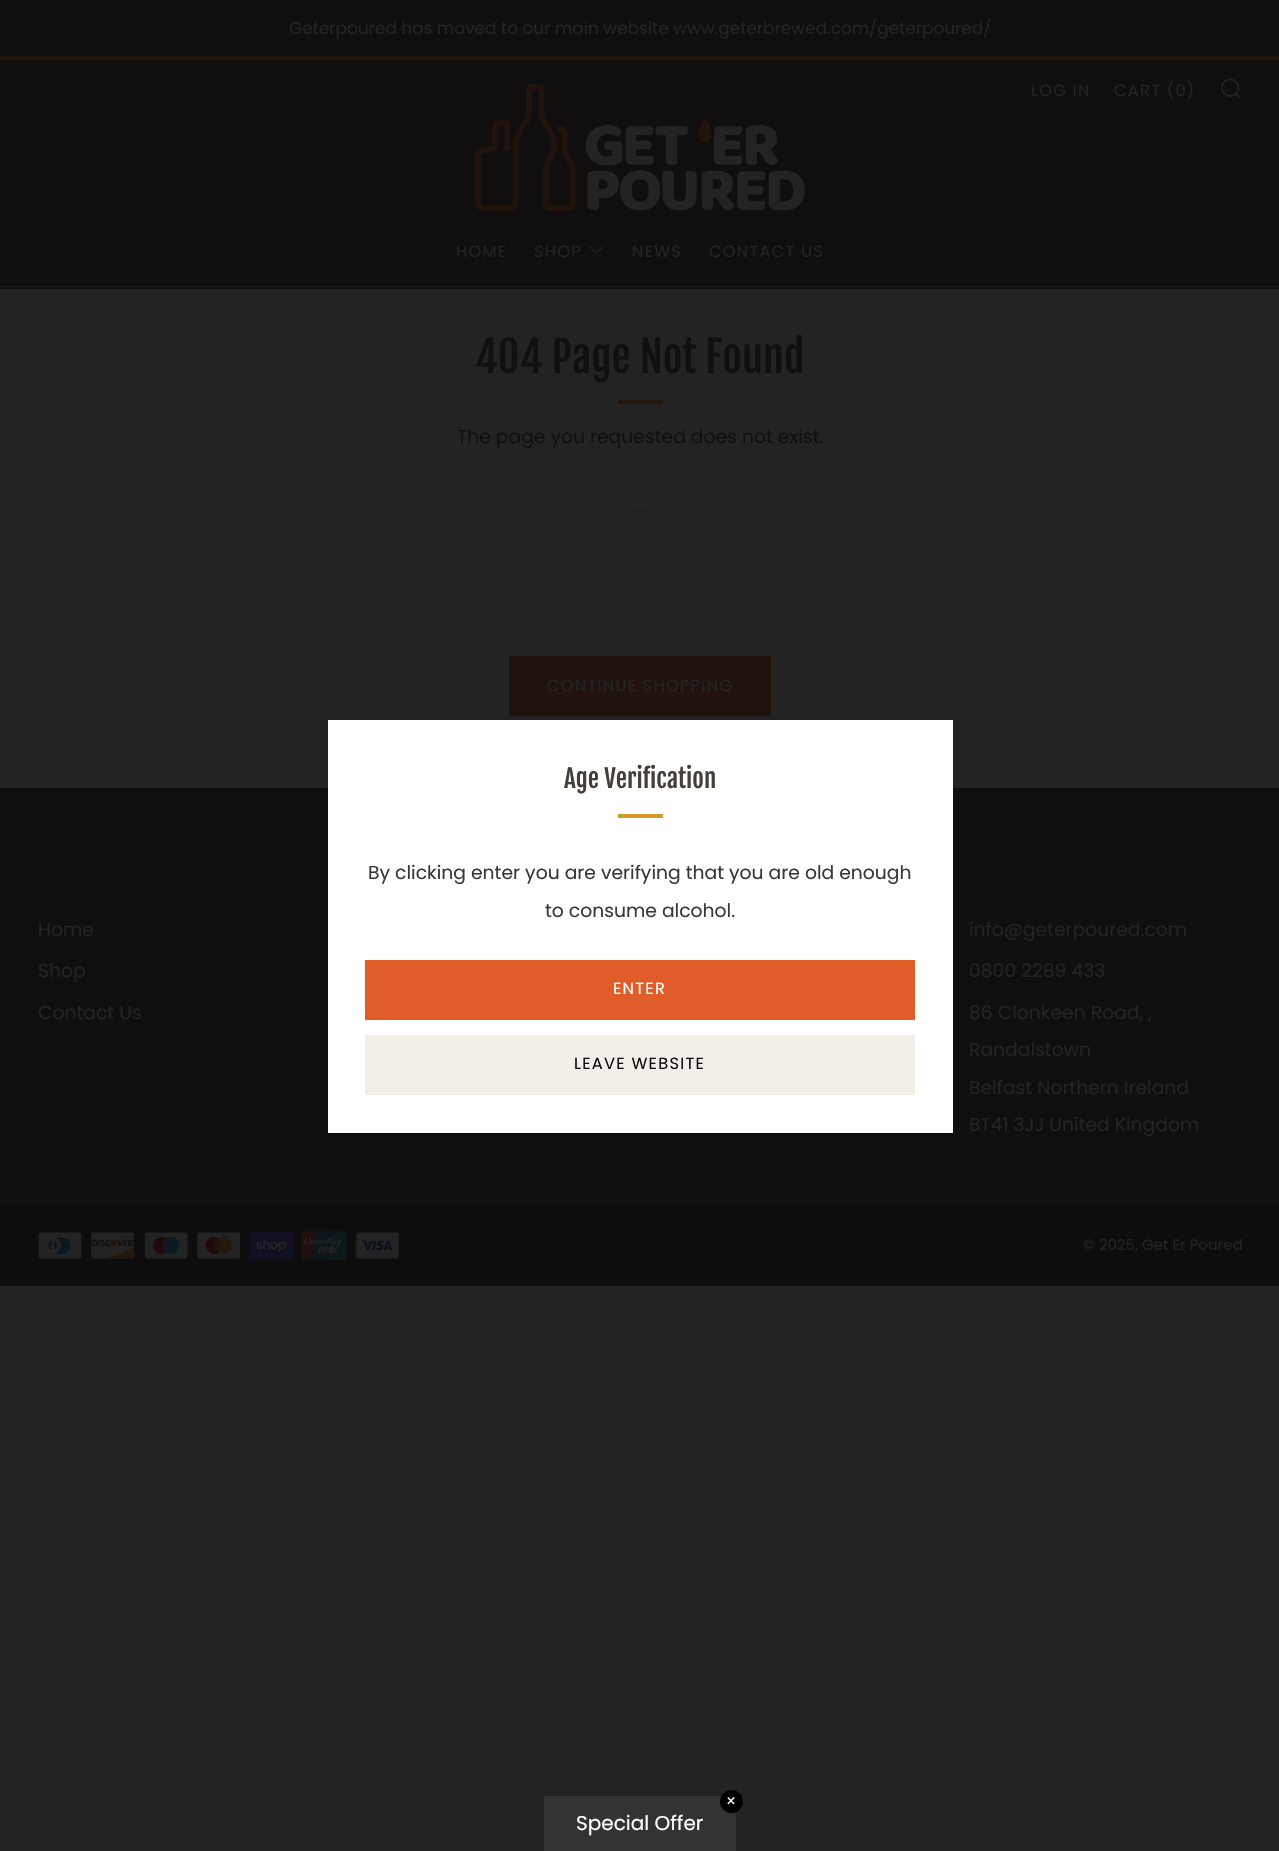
void draw(SkCanvas* c) {
SkPaint p;
p.setAntiAlias(true);
auto F=[&](const char* family, int weight, float size, bool italic = false){SkFontStyle style(weight, SkFontStyle::kNormal_Width,italic ? SkFontStyle::kItalic_Slant : SkFontStyle::kUpright_Slant);SkFont result(fontMgr->matchFamilyStyle(family, style), size);result.setSubpixel(true);return result;};
auto T=[&](const char* s, float x, float y, const SkFont& font){c->drawString(s, x, y, font, p);};
auto L=[&](const char* s, float x, float y, const SkFont& font, const SkPaint& ink, float letter, float word){std::vector<SkGlyphID> glyphs(font.countText(s, strlen(s), SkTextEncoding::kUTF8));std::vector<float> xs(glyphs.size());font.textToGlyphs(s, strlen(s), SkTextEncoding::kUTF8, glyphs);font.getXPos(glyphs, xs, x);float extra = 0;for (size_t i = 0; i < glyphs.size(); i++) {xs[i] += extra;extra += letter + word * (glyphs[i] == font.unicharToGlyph(' '));}c->drawTextBlob(SkTextBlob::MakeFromPosHGlyphs(glyphs, xs, y, font), 0, 0, ink);};
auto R=[&](float x, float y, float w, float h){c->drawRect(SkRect::MakeXYWH(x, y, w, h), p);};
auto I=[&](const char* path, float x, float y, float w, float h){auto image = SkImages::DeferredFromEncodedData(SkData::MakeFromFileName(path));c->drawImageRect(image, SkRect::MakeXYWH(x, y, w, h), SkSamplingOptions());};
c->clear(0xff232323);
p.setColor(0xff100f0e);
R(0,0,1279,56);
auto f1 = F("Poppins",400,16.9);
p.setColor(0xff232323);
T("Geterpoured has moved to our main website www.geterbrewed.com/geterpoured/",289,34,f1);
p.setColor(0xff100f0e);
R(0,60,1279,229);
p.setColor(0xff20130e);
R(0,56,1279,4);
p.setColor(0xff1d1d1c);
R(0,286,1279,1);
auto f2 = F("Poppins",400,16.25);
p.setColor(0xff232323);
L("LOG IN",1031,96,f2,p,1.25,0);
L("CART (0)",1114,96,f2,p,1.25,0);
I("1.png",1221,78,20,21);
L("HOME",456,257,f2,p,1.25,0);
L("SHOP",534,257,f2,p,1.25,0);
I("2.png",589,246,15,8);
L("NEWS",632,257,f2,p,1.25,0);
L("CONTACT US",709,257,f2,p,1.25,0);
I("3.png",475,84,330,127);
auto f3 = F("Fjalla One",400,42.5);
p.setColor(0xff10100f);
T("404 Page Not Found",475,373,f3);
p.setColor(0xff1f190e);
R(618,400,45,4);
auto f4 = F("Poppins",400,18.75);
p.setColor(0xff10100f);
T("The page you requested does not exist.",457,443,f4);
I("4.png",596,508,88,101);
p.setColor(0xff20130e);
R(509,656,262,60);
p.setColor(0xff232323);
L("CONTINUE SHOPPING",547,691,f2,p,1.25,0);
p.setColor(0xff100f0e);
R(0,788,1279,416);
p.setColor(0xff232323);
T("Home",38,936,f4);
T("Shop",38,977,f4);
T("Contact Us",38,1019,f4);
T("info@geterpoured.com",969,936,f4);
T("0800 2289 433",969,977,f4);
T("86 Clonkeen Road, ,",969,1019,f4);
T("Randalstown",969,1056,f4);
T("Belfast Northern Ireland",969,1094,f4);
T("BT41 3JJ United Kingdom",969,1131,f4);
p.setColor(0xff0e0d0d);
R(0,1204,1279,82);
I("5.png",38,1232,44,27);
I("6.png",91,1232,43,27);
I("7.png",144,1232,44,27);
I("8.png",197,1232,44,27);
I("9.png",249,1231,45,29);
I("10.png",301,1231,45,29);
I("11.png",356,1232,43,27);
auto f5 = F("Poppins",400,15);
p.setColor(0xff232323);
T("© 2025, Get Er Poured",1083,1250,f5);
p.setColor(0xffffffff);
R(328,720,625,413);
auto f6 = F("Fjalla One",400,25);
p.setColor(0xff444038);
T("Age Verification",564,788,f6);
p.setColor(0xffcf9b2b);
R(618,814,45,4);
p.setColor(0xff3a3836);
T("By clicking enter you are verifying that you are old enough",368,879,f4);
T("to consume alcohol.",545,917,f4);
p.setColor(0xffe05d2a);
R(365,960,550,60);
p.setColor(0xffffffff);
L("ENTER",613,994,f2,p,1.25,0);
p.setColor(0xfff2efe9);
R(365,1035,550,60);
p.setColor(0xff10100f);
L("LEAVE WEBSITE",574,1069,f2,p,1.25,0);
p.setColor(0xff333333);
R(544,1796,192,55);
p.setColor(0xff000000);
c->drawCircle(731.5,1801.5,11.5,p);
auto f7 = F("DejaVu Sans",400,12);
p.setColor(0xffffffff);
T("✕",726,1805,f7);
auto f8 = F("Poppins",400,20);
T("Special Offer",576,1830,f8);
}
